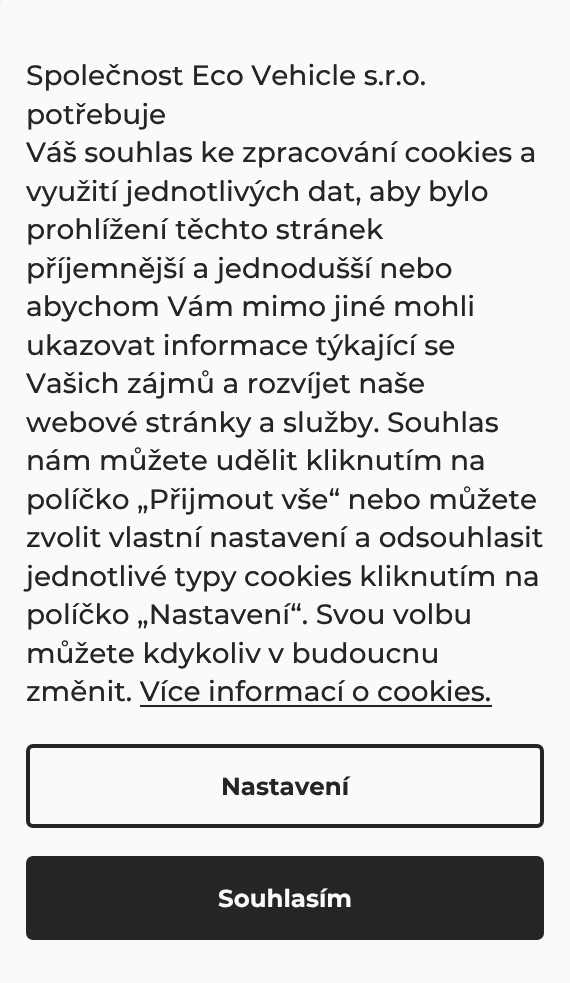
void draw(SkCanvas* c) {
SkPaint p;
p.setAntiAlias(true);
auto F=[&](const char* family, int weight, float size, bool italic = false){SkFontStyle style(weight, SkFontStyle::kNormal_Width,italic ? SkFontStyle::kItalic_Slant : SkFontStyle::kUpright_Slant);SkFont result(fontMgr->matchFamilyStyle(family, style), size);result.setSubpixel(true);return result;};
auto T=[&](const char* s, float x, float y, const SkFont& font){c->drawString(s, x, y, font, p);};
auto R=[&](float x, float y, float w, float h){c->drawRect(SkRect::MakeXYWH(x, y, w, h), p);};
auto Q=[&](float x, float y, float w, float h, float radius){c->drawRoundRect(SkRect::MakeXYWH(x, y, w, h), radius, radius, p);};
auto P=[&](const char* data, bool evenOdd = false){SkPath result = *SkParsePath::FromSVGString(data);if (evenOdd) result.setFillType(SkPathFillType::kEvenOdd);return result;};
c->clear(0xfffcfcfc);
p.setColor(0x801b1939);
p.setMaskFilter(SkMaskFilter::MakeBlur(kNormal_SkBlurStyle, 26));
c->drawRoundRect(SkRect::MakeXYWH(0,-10,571,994),14,14,p);
p.setMaskFilter(nullptr);
p.setColor(0xfff8fafb);
c->drawPath(P("M14-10h543c7.5 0 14 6.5 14 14v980h-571v-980c0-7.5 6.5-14 14-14z"),p);
auto f1 = F("Montserrat",500,28);
p.setColor(0xff252525);
T("Společnost Eco Vehicle s.r.o.",26,85,f1);
T("potřebuje",26,124,f1);
T("Váš souhlas ke zpracování cookies a",26,162,f1);
T("využití jednotlivých dat, aby bylo",26,201,f1);
T("prohlížení těchto stránek",26,239,f1);
T("příjemnější a jednodušší nebo",26,278,f1);
T("abychom Vám mimo jiné mohli",26,316,f1);
T("ukazovat informace týkající se",26,355,f1);
T("Vašich zájmů a rozvíjet naše",26,393,f1);
T("webové stránky a služby. Souhlas",26,432,f1);
T("nám můžete udělit kliknutím na",26,470,f1);
T("políčko „Přijmout vše“ nebo můžete",26,509,f1);
T("zvolit vlastní nastavení a odsouhlasit",26,547,f1);
T("jednotlivé typy cookies kliknutím na",26,586,f1);
T("políčko „Nastavení“. Svou volbu",26,624,f1);
T("můžete kdykoliv v budoucnu",26,663,f1);
T("změnit. Více informací o cookies.",26,701,f1);
R(140,705,352,2);
p.setStroke(true);
p.setStrokeWidth(4);
c->drawRoundRect(SkRect::MakeXYWH(28,746,514,80),5,5,p);
auto f2 = F("Montserrat",700,24.5);
p.setStroke(false);
T("Nastavení",221,795,f2);
Q(26,856,518,84,7);
p.setColor(0xfff8fafb);
T("Souhlasím",218,907,f2);
}
